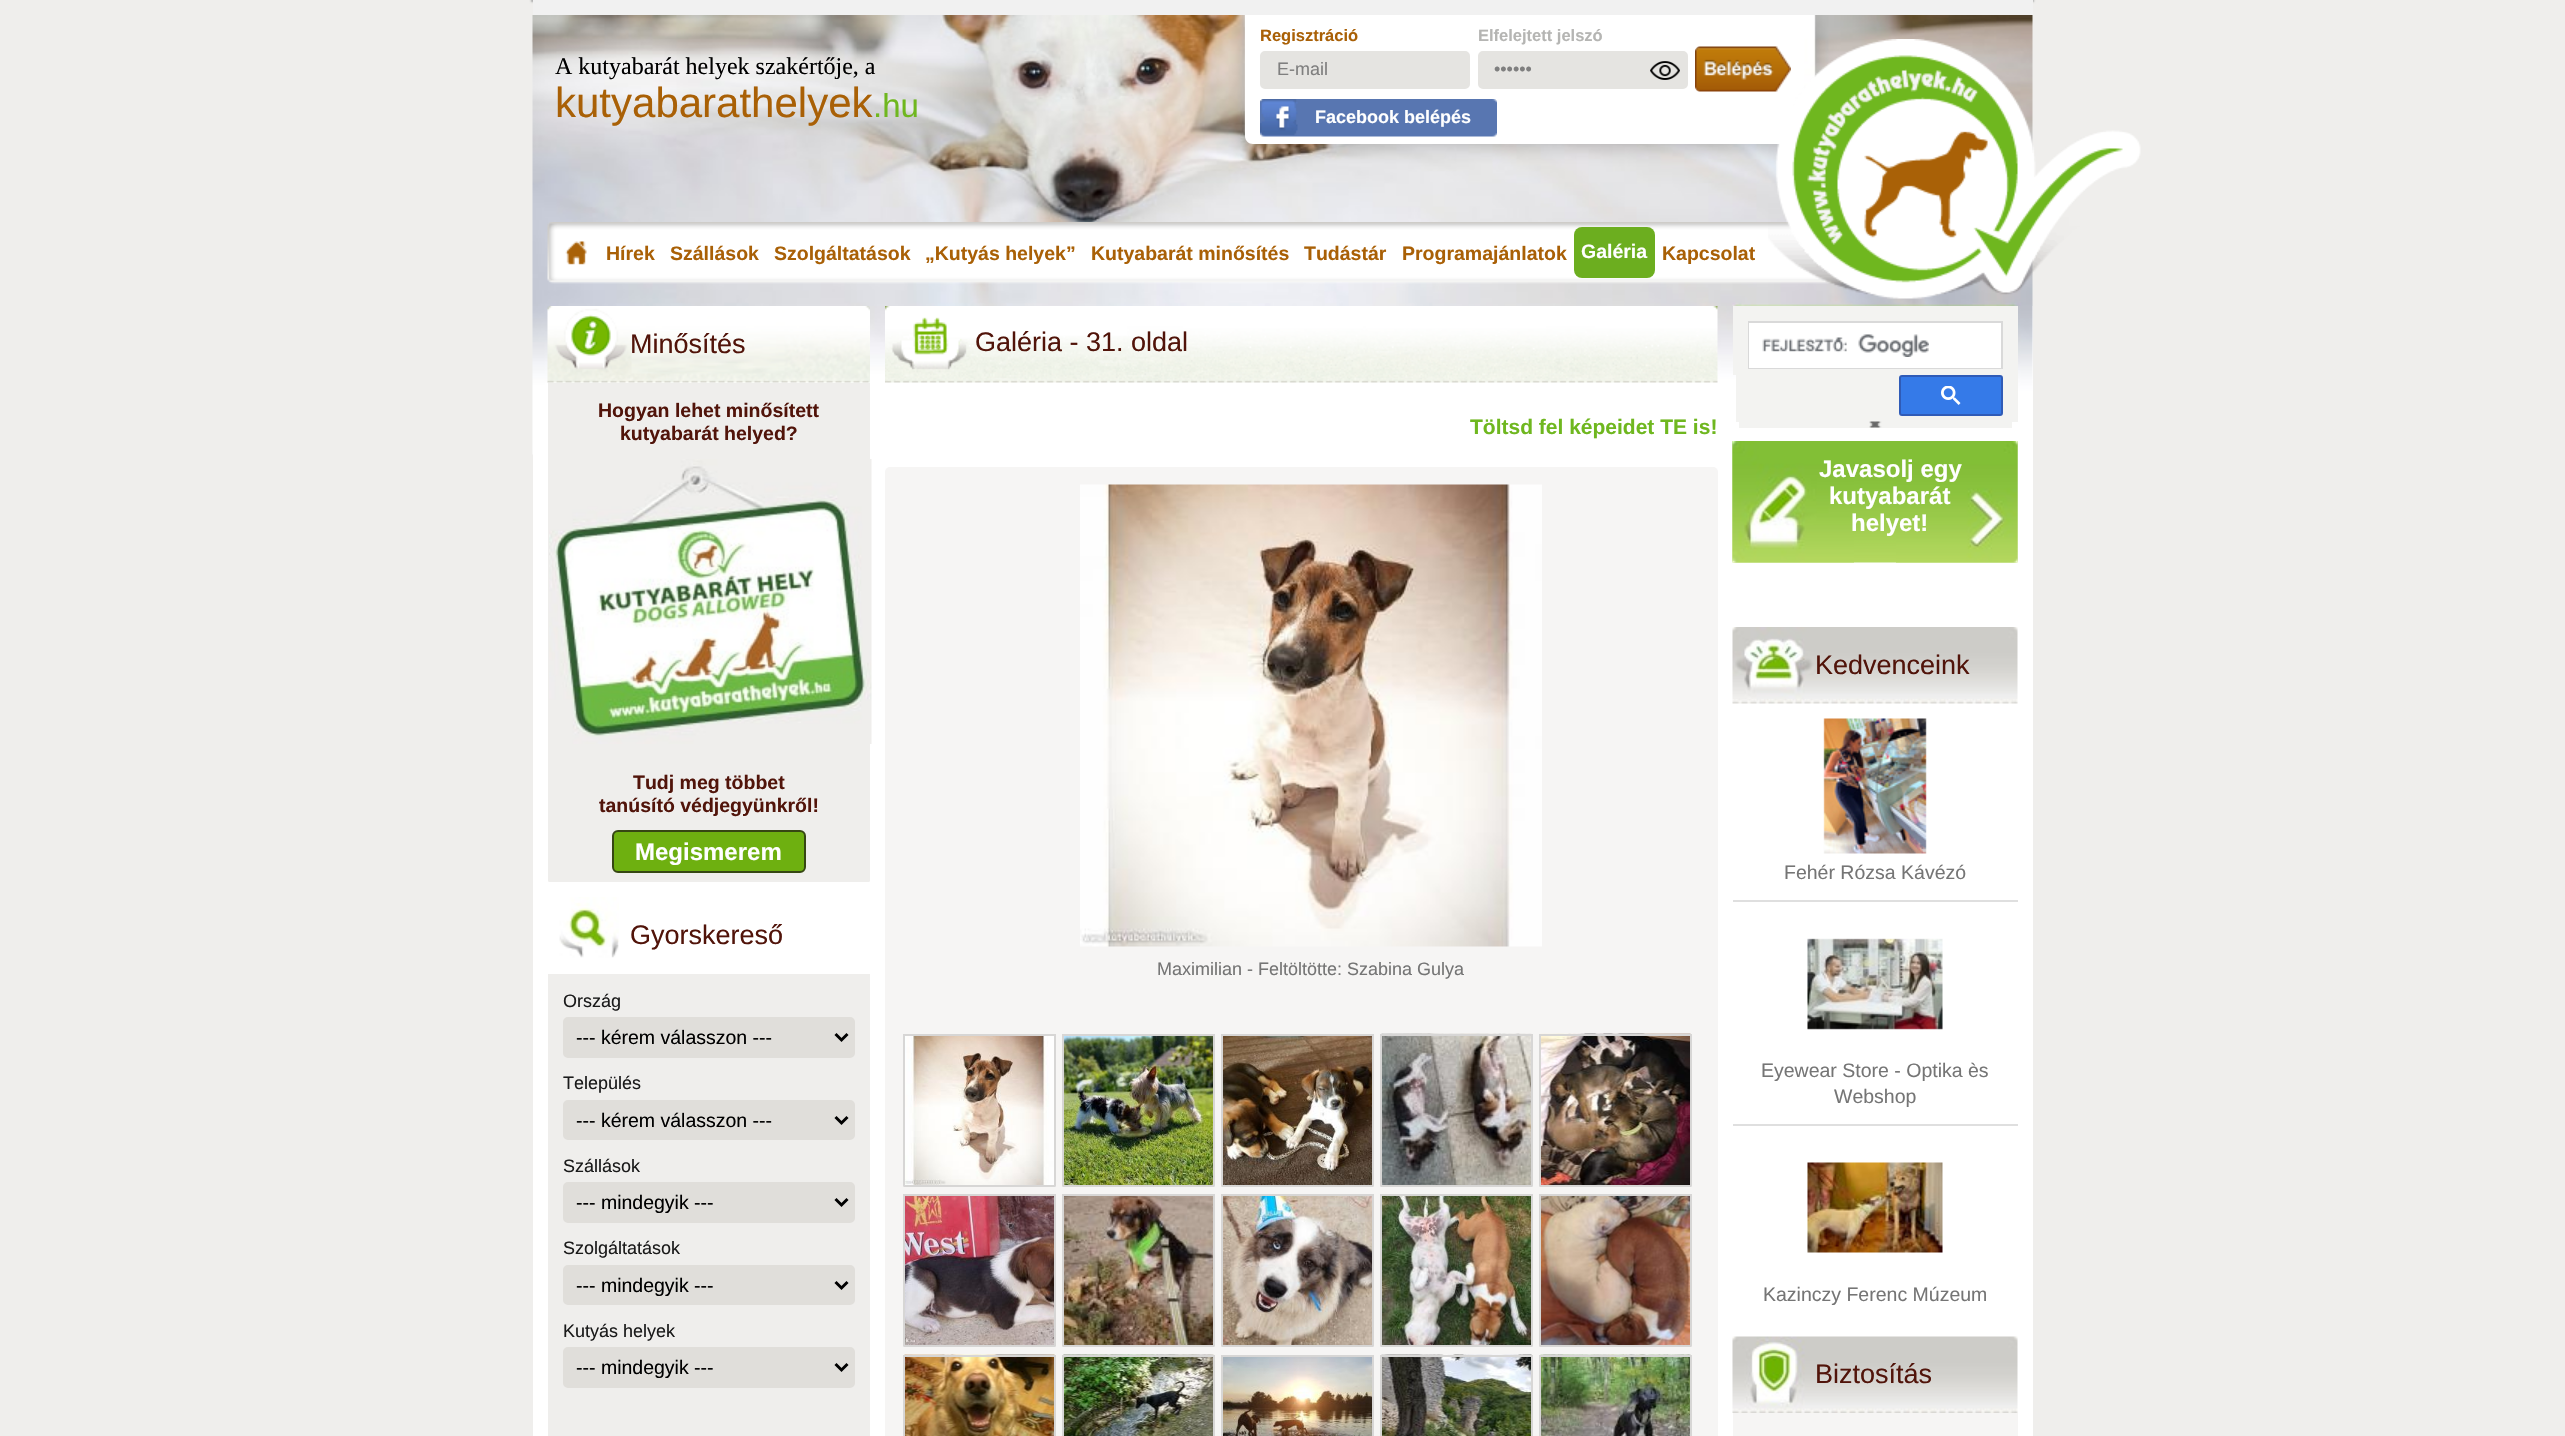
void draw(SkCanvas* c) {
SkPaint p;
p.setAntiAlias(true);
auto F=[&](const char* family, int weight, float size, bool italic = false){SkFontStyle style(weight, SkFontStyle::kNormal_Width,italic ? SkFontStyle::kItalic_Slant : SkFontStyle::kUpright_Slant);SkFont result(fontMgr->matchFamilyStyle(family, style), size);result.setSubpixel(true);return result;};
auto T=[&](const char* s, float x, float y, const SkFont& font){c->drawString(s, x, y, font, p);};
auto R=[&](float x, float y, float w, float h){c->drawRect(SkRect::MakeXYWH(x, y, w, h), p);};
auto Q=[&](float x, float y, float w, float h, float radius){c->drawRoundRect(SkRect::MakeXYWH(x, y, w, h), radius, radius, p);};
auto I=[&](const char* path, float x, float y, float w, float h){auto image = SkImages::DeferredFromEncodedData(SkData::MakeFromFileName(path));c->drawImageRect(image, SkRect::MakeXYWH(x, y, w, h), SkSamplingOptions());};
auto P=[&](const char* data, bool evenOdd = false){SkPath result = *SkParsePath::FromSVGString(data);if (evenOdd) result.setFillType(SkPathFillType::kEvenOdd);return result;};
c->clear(0xffefeeec);
p.setColor(0xffaaaaaa);
p.setMaskFilter(SkMaskFilter::MakeBlur(kNormal_SkBlurStyle, 1));
c->drawRect(SkRect::MakeXYWH(531,-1,1503,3),p);
p.setMaskFilter(nullptr);
p.setColor(0xfff1f1f1);
R(533,0,1500,15);
I("1.png",532,15,1501,291);
auto f1 = F("Liberation Serif",400,24);
p.setColor(0xff000000);
T("A kutyabarát helyek szakértője, a",555,74,f1);
auto f2 = F("Liberation Sans",400,42);
p.setColor(0xffa96006);
T("kutyabarathelyek",555,117,f2);
auto f3 = F("Liberation Sans",400,33);
p.setColor(0xff6fb71f);
T(".hu",873,117,f3);
I("6.png",547,222,1302,62);
I("5.png",1768,39,373,260);
p.setColor(0xffffffff);
c->drawPath(P("M1245 15h548v121c0 4.5-3.5 8-8 8h-532c-4.5 0-8-3.5-8-8z"),p);
auto f4 = F("Liberation Sans",700,16.5);
p.setColor(0xffa96006);
T("Regisztráció",1260,41,f4);
p.setColor(0xffb5b5b3);
T("Elfelejtett jelszó",1478,41,f4);
p.setColor(0xffe5e4e1);
c->drawRoundRect(SkRect::MakeXYWH(1261,52,208,36),4,4,p);
p.setStroke(true);
p.setStrokeWidth(2);
c->drawRoundRect(SkRect::MakeXYWH(1261,52,208,36),4,4,p);
auto f5 = F("Liberation Sans",400,18);
p.setStroke(false);
p.setColor(0xff7f7f7f);
T("E-mail",1277,75,f5);
p.setColor(0xffe5e4e1);
c->drawRoundRect(SkRect::MakeXYWH(1479,52,208,36),4,4,p);
p.setStroke(true);
c->drawRoundRect(SkRect::MakeXYWH(1479,52,208,36),4,4,p);
p.setStroke(false);
p.setColor(0xff7f7f7f);
T("••••••",1494,75,f5);
I("2.png",1650,61,30,19);
I("3.png",1695,46,96,46);
I("4.png",1260,99,237,38);
auto f6 = F("Liberation Sans",700,18);
p.setColor(0xffffffff);
T("Facebook belépés",1315,123,f6);
I("7.png",565,241,22,24);
auto f7 = F("Liberation Sans",700,19.5);
p.setColor(0xffa96006);
T("Hírek",606,260,f7);
T("Szállások",670,260,f7);
T("Szolgáltatások",774,260,f7);
T("„Kutyás helyek”",925,260,f7);
T("Kutyabarát minősítés",1091,260,f7);
T("Tudástár",1304,260,f7);
T("Programajánlatok",1402,260,f7);
p.setColor(0xff6cae1f);
Q(1574,227,81,51,8);
p.setColor(0xffffffff);
T("Galéria",1581,258,f7);
p.setColor(0xffa96006);
T("Kapcsolat",1662,260,f7);
p.setColor(0xffffffff);
R(533,306,1500,1130);
I("8.png",532,306,1501,149);
I("9.png",547,306,323,77);
auto f8 = F("Liberation Sans",400,27);
p.setColor(0xff51140a);
T("Minősítés",630,353,f8);
p.setColor(0xffefeeec);
c->drawPath(P("M549 384h320v496.5c0 .5 0 .5-.5 .5h-319c-.5 0-.5 0-.5-.5z"),p);
p.setStroke(true);
c->drawPath(P("M549 384h320v496.5c0 .5 0 .5-.5 .5h-319c-.5 0-.5 0-.5-.5z"),p);
p.setStroke(false);
p.setColor(0xff51140a);
T("Hogyan lehet minősített",598,417,f7);
T("kutyabarát helyed?",620,440,f7);
I("10.png",549,459,323,285);
T("Tudj meg többet",633,789,f7);
T("tanúsító védjegyünkről!",599,812,f7);
p.setColor(0xff6eb010);
c->drawRoundRect(SkRect::MakeXYWH(613,831,192,41),5,5,p);
p.setStroke(true);
p.setColor(0xff364713);
c->drawRoundRect(SkRect::MakeXYWH(613,831,192,41),5,5,p);
auto f9 = F("Liberation Sans",700,24);
p.setStroke(false);
p.setColor(0xffffffff);
T("Megismerem",635,860,f9);
I("11.png",559,897,60,61);
p.setColor(0xff51140a);
T("Gyorskereső",630,944,f8);
p.setColor(0xffefeeec);
R(548,974,322,462);
p.setColor(0xff1b1b1b);
T("Ország",563,1007,f5);
p.setColor(0xffe0deda);
c->drawRoundRect(SkRect::MakeXYWH(564,1018,290,39),4,4,p);
p.setStroke(true);
c->drawRoundRect(SkRect::MakeXYWH(564,1018,290,39),4,4,p);
p.setStrokeWidth(3);
p.setColor(0xff000000);
c->drawPath(P("M835.5 1034l6 6l6-6"),p);
auto f10 = F("Liberation Sans",400,19.5);
p.setStroke(false);
T("--- kérem válasszon ---",576,1044,f10);
p.setColor(0xff1b1b1b);
T("Település",563,1089,f5);
p.setColor(0xffe0deda);
c->drawRoundRect(SkRect::MakeXYWH(564,1101,290,38),4,4,p);
p.setStroke(true);
p.setStrokeWidth(2);
c->drawRoundRect(SkRect::MakeXYWH(564,1101,290,38),4,4,p);
p.setStrokeWidth(3);
p.setColor(0xff000000);
c->drawPath(P("M835.5 1117l6 6l6-6"),p);
p.setStroke(false);
T("--- kérem válasszon ---",576,1127,f10);
p.setColor(0xff1b1b1b);
T("Szállások",563,1172,f5);
p.setColor(0xffe0deda);
c->drawRoundRect(SkRect::MakeXYWH(564,1183,290,39),4,4,p);
p.setStroke(true);
p.setStrokeWidth(2);
c->drawRoundRect(SkRect::MakeXYWH(564,1183,290,39),4,4,p);
p.setStrokeWidth(3);
p.setColor(0xff000000);
c->drawPath(P("M835.5 1199l6 6l6-6"),p);
p.setStroke(false);
T("--- mindegyik ---",576,1209,f10);
p.setColor(0xff1b1b1b);
T("Szolgáltatások",563,1254,f5);
p.setColor(0xffe0deda);
c->drawRoundRect(SkRect::MakeXYWH(564,1266,290,38),4,4,p);
p.setStroke(true);
p.setStrokeWidth(2);
c->drawRoundRect(SkRect::MakeXYWH(564,1266,290,38),4,4,p);
p.setStrokeWidth(3);
p.setColor(0xff000000);
c->drawPath(P("M835.5 1282l6 6l6-6"),p);
p.setStroke(false);
T("--- mindegyik ---",576,1292,f10);
p.setColor(0xff1b1b1b);
T("Kutyás helyek",563,1337,f5);
p.setColor(0xffe0deda);
c->drawRoundRect(SkRect::MakeXYWH(564,1348,290,39),4,4,p);
p.setStroke(true);
p.setStrokeWidth(2);
c->drawRoundRect(SkRect::MakeXYWH(564,1348,290,39),4,4,p);
p.setStrokeWidth(3);
p.setColor(0xff000000);
c->drawPath(P("M835.5 1364l6 6l6-6"),p);
p.setStroke(false);
T("--- mindegyik ---",576,1374,f10);
I("12.png",885,306,833,77);
p.setColor(0xff51140a);
T("Galéria - 31. oldal",975,351,f8);
auto f11 = F("Liberation Sans",700,21);
p.setColor(0xff6fb71f);
T("Töltsd fel képeidet TE is!",1470,434,f11);
p.setColor(0xfff6f5f4);
Q(885,467,833,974,5);
I("13.png",1080,484,462,463);
p.setColor(0xff757575);
T("Maximilian - Feltöltötte: Szabina Gulya",1157,975,f5);
I("14.png",905,1036,149,149);
p.setStroke(true);
p.setStrokeWidth(2);
p.setColor(0xffd7d6d5);
c->drawPath(P("M904 1035h151v150.5c0 .5 0 .5-.5 .5h-150c-.5 0-.5 0-.5-.5z"),p);
I("15.png",1064,1036,149,149);
c->drawPath(P("M1063 1035h151v150.5c0 .5 0 .5-.5 .5h-150c-.5 0-.5 0-.5-.5z"),p);
I("16.png",1223,1036,149,149);
c->drawPath(P("M1222 1035h151v150.5c0 .5 0 .5-.5 .5h-150c-.5 0-.5 0-.5-.5z"),p);
I("17.png",1381,1033,151,154);
c->drawPath(P("M1381 1035h151v150.5c0 .5 0 .5-.5 .5h-150c-.5 0-.5 0-.5-.5z"),p);
I("18.png",1540,1033,151,154);
c->drawPath(P("M1540 1035h151v150.5c0 .5 0 .5-.5 .5h-150c-.5 0-.5 0-.5-.5z"),p);
I("19.png",903,1196,153,150);
c->drawPath(P("M904 1195h151v150.5c0 .5 0 .5-.5 .5h-150c-.5 0-.5 0-.5-.5z"),p);
I("20.png",1063,1196,151,151);
c->drawPath(P("M1063 1195h151v150.5c0 .5 0 .5-.5 .5h-150c-.5 0-.5 0-.5-.5z"),p);
I("21.png",1222,1196,151,151);
c->drawPath(P("M1222 1195h151v150.5c0 .5 0 .5-.5 .5h-150c-.5 0-.5 0-.5-.5z"),p);
I("22.png",1381,1196,151,151);
c->drawPath(P("M1381 1195h151v150.5c0 .5 0 .5-.5 .5h-150c-.5 0-.5 0-.5-.5z"),p);
I("23.png",1540,1196,151,151);
c->drawPath(P("M1540 1195h151v150.5c0 .5 0 .5-.5 .5h-150c-.5 0-.5 0-.5-.5z"),p);
I("24.png",904,1354,151,82);
c->drawRect(SkRect::MakeXYWH(904,1356,151,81),p);
I("25.png",1063,1354,151,82);
c->drawRect(SkRect::MakeXYWH(1063,1356,151,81),p);
I("26.png",1223,1357,149,79);
c->drawRect(SkRect::MakeXYWH(1222,1356,151,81),p);
I("27.png",1381,1354,151,82);
c->drawRect(SkRect::MakeXYWH(1381,1356,151,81),p);
I("28.png",1540,1354,151,82);
c->drawRect(SkRect::MakeXYWH(1540,1356,151,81),p);
p.setStroke(false);
p.setColor(0xffffffff);
R(1780,375,238,11);
p.setColor(0xfff3f3f1);
R(1733,306,285,69);
p.setStroke(true);
p.setColor(0xffd9d9d9);
c->drawRect(SkRect::MakeXYWH(1749,322,253,46),p);
p.setStroke(false);
p.setColor(0xffffffff);
R(1749,323,252,45);
I("29.png",1762,334,167,23);
p.setColor(0xfff3f3f1);
R(1736,375,282,47);
p.setColor(0xff357ae8);
c->drawRoundRect(SkRect::MakeXYWH(1900,376,102,39),2,2,p);
p.setStroke(true);
p.setColor(0xff2f5bb7);
c->drawRoundRect(SkRect::MakeXYWH(1900,376,102,39),2,2,p);
I("30.png",1941,386,20,19);
p.setStroke(false);
p.setColor(0xfff3f3f1);
R(1739,422,273,6);
I("31.png",1869,421,13,7);
I("32.png",1732,441,286,122);
I("33.png",1732,441,122,122);
I("34.png",1896,441,122,122);
p.setColor(0xffffffff);
T("Javasolj egy",1819,477,f9);
T("kutyabarát",1829,504,f9);
T("helyet!",1851,531,f9);
I("35.png",1732,627,286,77);
p.setColor(0xff51140a);
T("Kedvenceink",1815,674,f8);
I("36.png",1823,718,104,136);
p.setColor(0xff757575);
T("Fehér Rózsa Kávézó",1784,879,f10);
p.setColor(0xffdfdfdf);
R(1733,900,285,2);
I("37.png",1807,938,136,92);
p.setColor(0xff757575);
T("Eyewear Store - Optika ès",1761,1077,f10);
T("Webshop",1834,1103,f10);
p.setColor(0xffdfdfdf);
R(1733,1124,285,2);
I("38.png",1807,1162,136,91);
p.setColor(0xff757575);
T("Kazinczy Ferenc Múzeum",1763,1301,f10);
I("39.png",1732,1336,286,77);
p.setColor(0xff51140a);
T("Biztosítás",1815,1383,f8);
p.setColor(0xfff6f5f4);
R(1733,1413,285,23);
}
